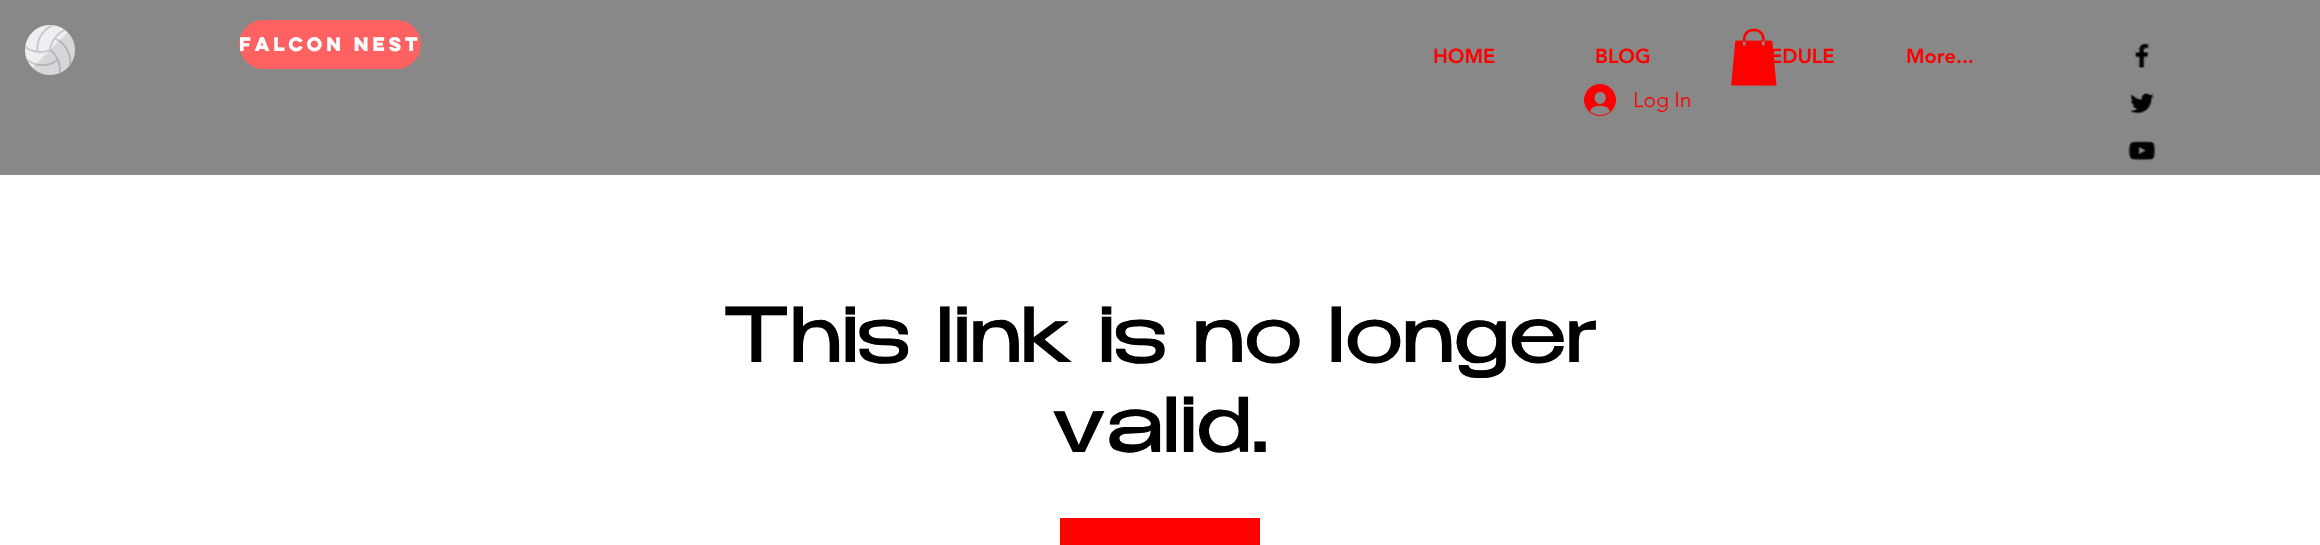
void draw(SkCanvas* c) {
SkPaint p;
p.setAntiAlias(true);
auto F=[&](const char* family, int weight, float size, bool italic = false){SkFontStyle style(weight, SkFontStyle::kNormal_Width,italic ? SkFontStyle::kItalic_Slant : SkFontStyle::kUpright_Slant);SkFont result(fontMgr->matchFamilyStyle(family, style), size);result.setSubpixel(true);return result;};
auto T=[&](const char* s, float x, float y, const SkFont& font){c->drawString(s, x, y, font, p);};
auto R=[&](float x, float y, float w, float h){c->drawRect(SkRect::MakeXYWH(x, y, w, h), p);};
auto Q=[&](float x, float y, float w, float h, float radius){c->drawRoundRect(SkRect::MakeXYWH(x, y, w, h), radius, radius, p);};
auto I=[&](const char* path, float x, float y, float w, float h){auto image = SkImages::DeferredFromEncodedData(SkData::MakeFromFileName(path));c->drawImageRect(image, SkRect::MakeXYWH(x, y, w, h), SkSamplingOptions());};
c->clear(0xffffffff);
p.setColor(0xff888888);
R(0,0,2320,175);
I("1.png",25,25,50,50);
p.setColor(0xfffe6161);
Q(239,20,182,49,24.5);
auto f1 = F("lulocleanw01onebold",700,17.5);
p.setColor(0xffffffff);
T("FALCON NEST",239,51,f1);
auto f2 = F("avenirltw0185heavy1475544",900,20);
p.setColor(0xfffe0000);
T("HOME",1433,63,f2);
T("BLOG",1595,63,f2);
I("5.png",1731,28,46,58);
T("EDULE",1770,63,f2);
T("More...",1906,63,f2);
I("2.png",2134,43,16,25);
I("3.png",2130,92,25,22);
I("4.png",2128,141,28,20);
I("6.png",1584,84,32,32);
auto f3 = F("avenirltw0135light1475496",300,21);
T("Log In",1633,107,f3);
auto f4 = F("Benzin",400,75);
p.setColor(0xff000000);
T("This link is no longer",722,362,f4);
T("valid.",1051,452,f4);
p.setColor(0xfffe0000);
R(1060,518,200,27);
}
